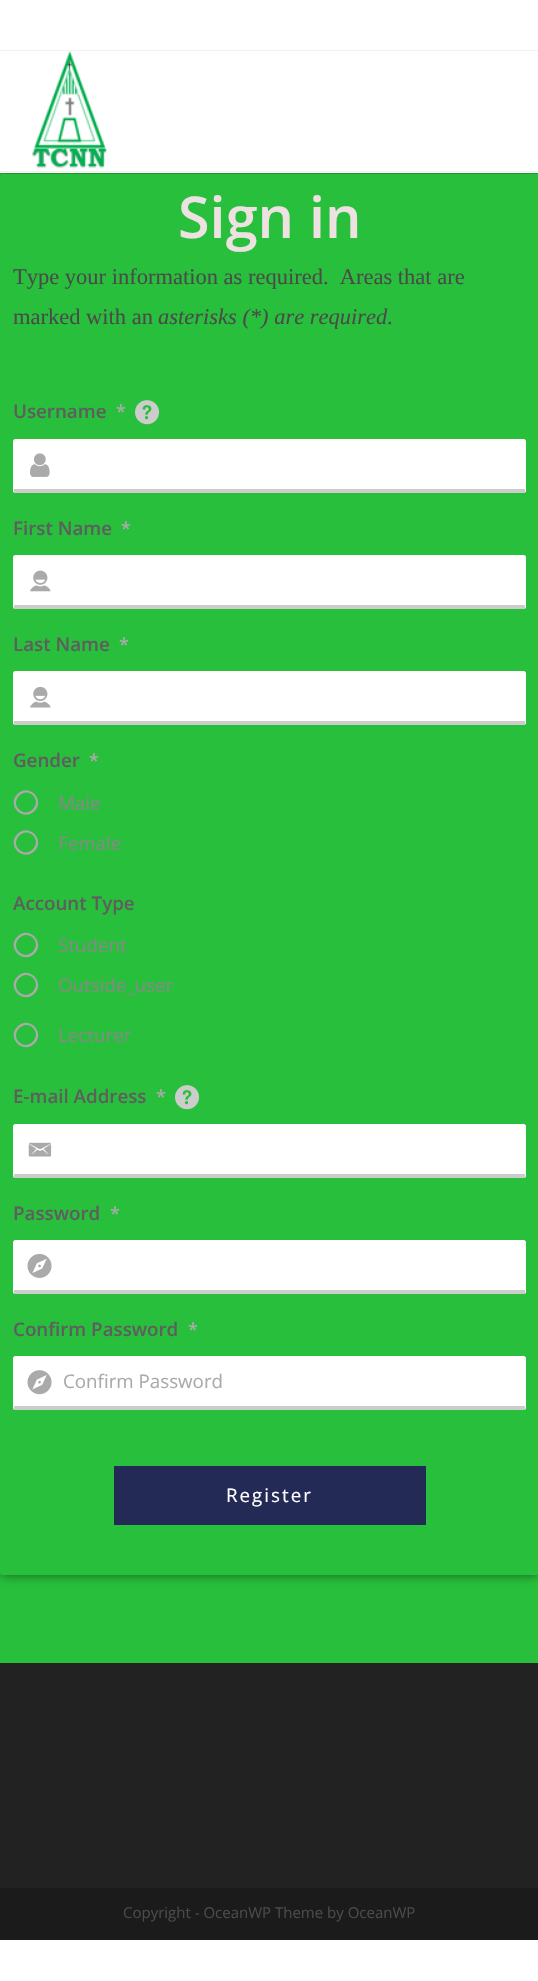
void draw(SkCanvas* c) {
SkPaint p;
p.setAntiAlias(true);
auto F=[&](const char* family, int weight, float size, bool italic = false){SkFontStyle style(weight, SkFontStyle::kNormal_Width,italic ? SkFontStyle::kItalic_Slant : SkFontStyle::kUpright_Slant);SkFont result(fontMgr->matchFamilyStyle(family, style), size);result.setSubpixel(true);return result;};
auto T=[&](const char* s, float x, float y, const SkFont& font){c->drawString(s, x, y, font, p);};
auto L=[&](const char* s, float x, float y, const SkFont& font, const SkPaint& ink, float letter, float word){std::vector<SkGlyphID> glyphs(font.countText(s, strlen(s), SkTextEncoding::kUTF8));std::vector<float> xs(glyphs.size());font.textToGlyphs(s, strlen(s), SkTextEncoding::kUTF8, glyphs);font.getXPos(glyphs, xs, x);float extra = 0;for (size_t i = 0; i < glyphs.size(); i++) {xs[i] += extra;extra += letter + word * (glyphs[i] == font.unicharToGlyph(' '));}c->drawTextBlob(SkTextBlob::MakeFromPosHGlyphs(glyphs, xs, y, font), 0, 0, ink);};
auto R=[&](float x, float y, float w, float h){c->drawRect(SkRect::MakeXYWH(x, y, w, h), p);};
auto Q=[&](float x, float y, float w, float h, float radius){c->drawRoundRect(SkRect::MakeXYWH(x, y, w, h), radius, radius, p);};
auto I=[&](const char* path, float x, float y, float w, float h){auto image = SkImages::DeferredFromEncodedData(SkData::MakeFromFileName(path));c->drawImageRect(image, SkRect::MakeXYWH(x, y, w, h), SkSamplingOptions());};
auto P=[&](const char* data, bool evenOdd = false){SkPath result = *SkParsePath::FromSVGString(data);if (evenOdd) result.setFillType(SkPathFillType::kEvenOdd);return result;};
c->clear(0xffffffff);
p.setColor(0xfff1f1f1);
R(0,50,538,1);
p.setColor(0xff27bf3b);
R(0,173,538,1490);
c->save();
c->clipPath(P("M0 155h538v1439h-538zm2.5 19h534c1.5 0 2.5 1 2.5 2.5v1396c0 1.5-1 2.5-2.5 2.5h-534c-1.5 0-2.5-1-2.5-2.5v-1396c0-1.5 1-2.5 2.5-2.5z",true),true);
p.setColor(0x80000000);
p.setMaskFilter(SkMaskFilter::MakeBlur(kNormal_SkBlurStyle, 6));
c->drawRoundRect(SkRect::MakeXYWH(0,174,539,1401),2.5,2.5,p);
p.setMaskFilter(nullptr);
c->restore();
p.setColor(0xffffffff);
R(0,162,538,11);
p.setColor(0xfff1f1f1);
R(0,171,538,1);
I("1.png",31,51,76,118);
auto f1 = F("Open Sans",600,57.5);
p.setColor(0xffede1e1);
T("Sign in",178,238,f1);
auto f2 = F("Liberation Serif",400,22.5);
p.setColor(0xff4a4a4a);
T("Type your information as required.  Areas that are",13,284,f2);
T("marked with an",13,324,f2);
auto f3 = F("Liberation Serif",400,22.5,true);
T("asterisks (*) are required",158,324,f3);
T(".",387,324,f2);
auto f4 = F("Open Sans",600,18.75);
p.setColor(0xff5e5e5e);
T("Username",13,418,f4);
auto f5 = F("Open Sans",600,18);
p.setColor(0xffaaaaaa);
T("*",116,418,f5);
I("2.png",135,400,25,25);
p.setColor(0xffffffff);
Q(13,439,513,54,2.5);
p.setColor(0xffcccccc);
R(14,489,511,4);
I("3.png",30,453,20,24);
p.setColor(0xff5e5e5e);
T("First Name",13,535,f4);
p.setColor(0xffaaaaaa);
T("*",121,535,f5);
p.setColor(0xffffffff);
Q(13,555,513,54,2.5);
p.setColor(0xffcccccc);
R(14,605,511,4);
I("4.png",30,570,21,22);
p.setColor(0xff5e5e5e);
T("Last Name",13,651,f4);
p.setColor(0xffaaaaaa);
T("*",119,651,f5);
p.setColor(0xffffffff);
Q(13,671,513,54,2.5);
p.setColor(0xffcccccc);
R(14,721,511,4);
I("5.png",30,686,21,22);
p.setColor(0xff5e5e5e);
T("Gender",13,767,f4);
p.setColor(0xffaaaaaa);
T("*",89,767,f5);
c->drawPath(P("M17.5 794c11-11.5 28.5 6 17 17c-11.5 11.5-28.5-6-17-17zm1.5 15.5c9 9 23-5 14-14c-9-9-23 5-14 14z"),p);
auto f6 = F("Open Sans",400,18.75);
p.setColor(0xff888888);
T("Male",58,810,f6);
p.setColor(0xffaaaaaa);
c->drawPath(P("M17.5 834c11-11.5 28.5 6 17 17c-11.5 11.5-28.5-6-17-17zm1.5 15.5c9 9 23-5 14-14c-9-9-23 5-14 14z"),p);
p.setColor(0xff888888);
T("Female",58,850,f6);
p.setColor(0xff5e5e5e);
T("Account Type",13,910,f4);
p.setColor(0xffaaaaaa);
c->drawPath(P("M17.5 936.5c11-11.5 28.5 6 17 17c-11.5 11.5-28.5-6-17-17zm1.5 15.5c9 9 23-5 14-14c-9-9-23 5-14 14z"),p);
p.setColor(0xff888888);
T("Student",58,952,f6);
p.setColor(0xffaaaaaa);
c->drawPath(P("M17.5 976.5c11-11.5 28.5 6 17 17c-11.5 11.5-28.5-6-17-17zm1.5 15.5c9 9 23-5 14-14c-9-9-23 5-14 14z"),p);
p.setColor(0xff888888);
T("Outside_user",58,992,f6);
p.setColor(0xffaaaaaa);
c->drawPath(P("M17.5 1026.5c11-11.5 28.5 6 17 17c-11.5 11.5-28.5-6-17-17zm1.5 15.5c9 9 23-5 14-14c-9-9-23 5-14 14z"),p);
p.setColor(0xff888888);
T("Lecturer",58,1042,f6);
p.setColor(0xff5e5e5e);
T("E-mail Address",13,1103,f4);
p.setColor(0xffaaaaaa);
T("*",156,1103,f5);
I("2.png",175,1085,25,25);
p.setColor(0xffffffff);
Q(13,1124,513,54,2.5);
p.setColor(0xffcccccc);
R(14,1174,511,4);
I("6.png",28,1142,24,15);
p.setColor(0xff5e5e5e);
T("Password",13,1220,f4);
p.setColor(0xffaaaaaa);
T("*",110,1220,f5);
p.setColor(0xffffffff);
Q(13,1240,513,54,2.5);
p.setColor(0xffcccccc);
R(14,1290,511,4);
I("7.png",27,1253,25,25);
p.setColor(0xff5e5e5e);
T("Confirm Password",13,1336,f4);
p.setColor(0xffaaaaaa);
T("*",188,1336,f5);
p.setColor(0xffffffff);
Q(13,1356,513,54,2.5);
I("8.png",27,1370,25,25);
p.setColor(0xffcccccc);
R(14,1406,511,4);
p.setColor(0xffaaaaaa);
T("Confirm Password",63,1388,f6);
p.setColor(0xff242a56);
R(114,1466,312,59);
p.setColor(0xffffffff);
L("Register",226,1502,f6,p,2,0);
p.setColor(0xff222222);
R(0,1663,538,225);
p.setColor(0xff1b1b1b);
R(0,1888,538,52);
auto f7 = F("Open Sans",400,15);
p.setColor(0xff4a4a4a);
T("Copyright - OceanWP Theme by OceanWP",123,1918,f7);
}
